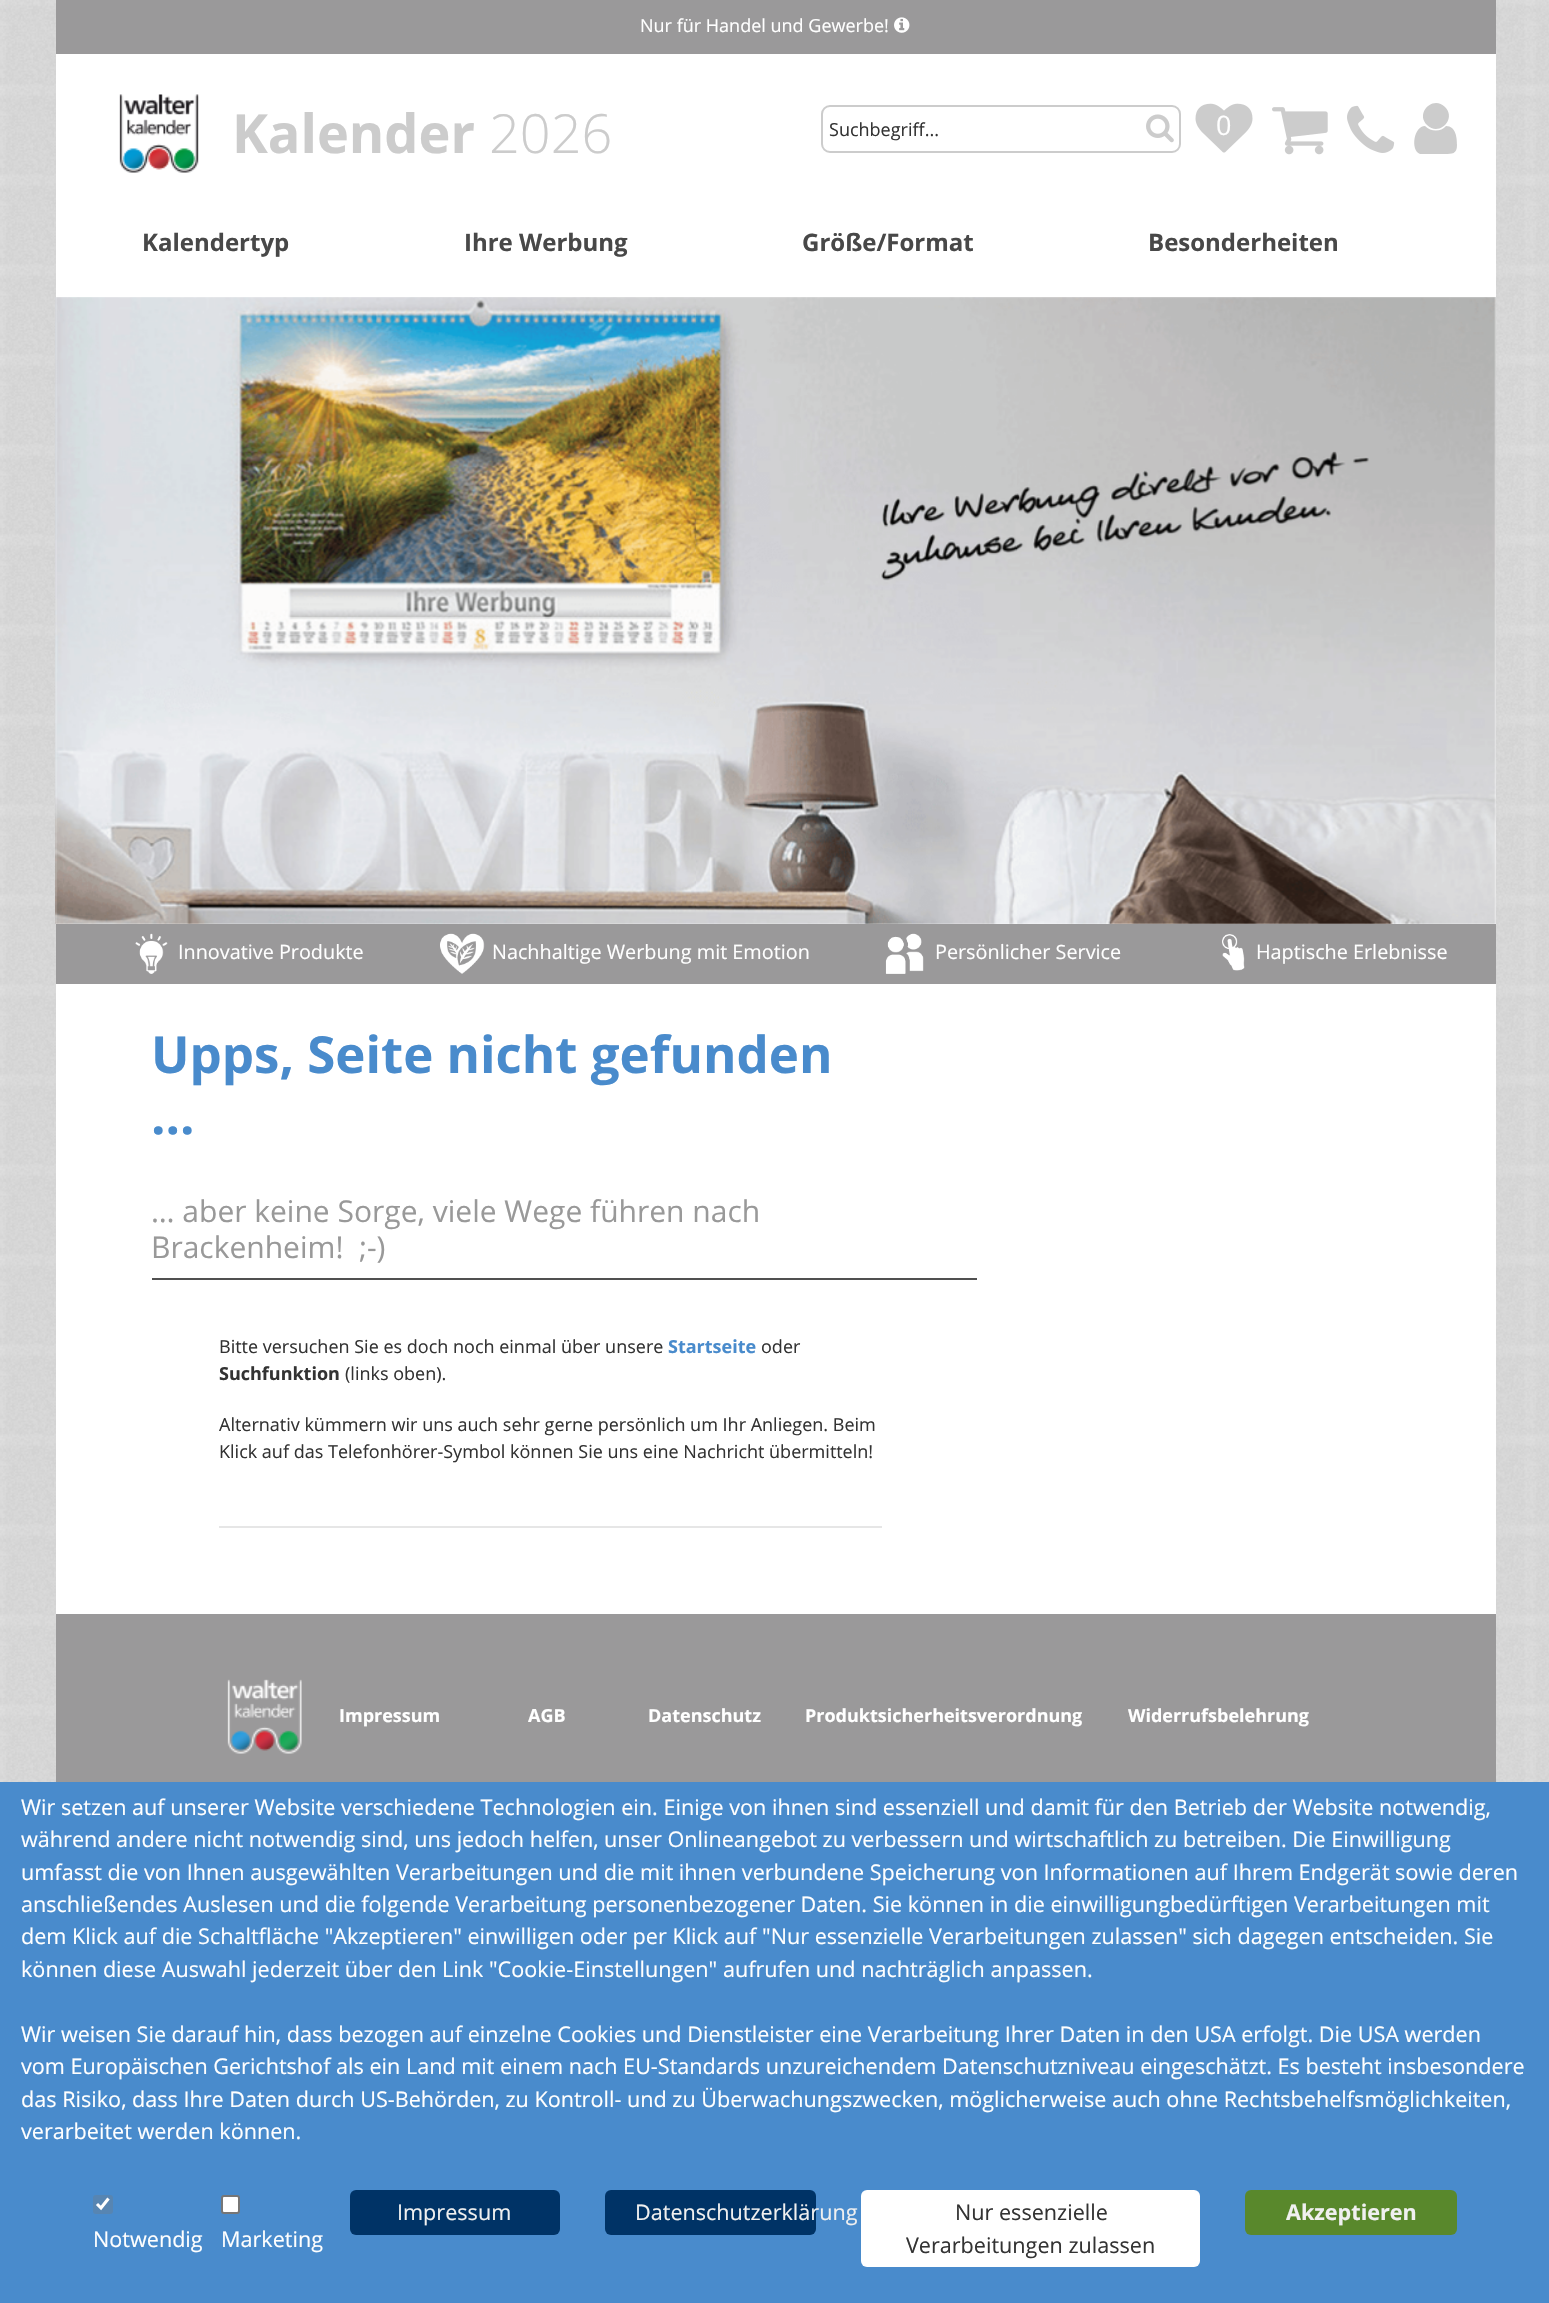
void draw(SkCanvas* c) {
SkPaint p;
p.setAntiAlias(true);
auto F=[&](const char* family, int weight, float size, bool italic = false){SkFontStyle style(weight, SkFontStyle::kNormal_Width,italic ? SkFontStyle::kItalic_Slant : SkFontStyle::kUpright_Slant);SkFont result(fontMgr->matchFamilyStyle(family, style), size);result.setSubpixel(true);return result;};
auto T=[&](const char* s, float x, float y, const SkFont& font){c->drawString(s, x, y, font, p);};
auto R=[&](float x, float y, float w, float h){c->drawRect(SkRect::MakeXYWH(x, y, w, h), p);};
auto Q=[&](float x, float y, float w, float h, float radius){c->drawRoundRect(SkRect::MakeXYWH(x, y, w, h), radius, radius, p);};
auto I=[&](const char* path, float x, float y, float w, float h){auto image = SkImages::DeferredFromEncodedData(SkData::MakeFromFileName(path));c->drawImageRect(image, SkRect::MakeXYWH(x, y, w, h), SkSamplingOptions());};
auto P=[&](const char* data, bool evenOdd = false){SkPath result = *SkParsePath::FromSVGString(data);if (evenOdd) result.setFillType(SkPathFillType::kEvenOdd);return result;};
c->clear(0xffffffff);
I("1.png",0,0,1549,1782);
p.setColor(0xffffffff);
R(56,54,1440,870);
p.setColor(0xff9a999a);
R(56,0,1440,54);
auto f1 = F("Open Sans",400,18);
p.setColor(0xffffffff);
T("Nur für Handel und Gewerbe!",640,32,f1);
I("2.png",894,17,16,16);
I("3.png",119,94,80,79);
auto f2 = F("Open Sans",700,54);
p.setColor(0xffcccccc);
T("Kalender",232,153,f2);
auto f3 = F("Open Sans",300,54);
T("2026",489,153,f3);
p.setStroke(true);
p.setStrokeWidth(2);
c->drawRoundRect(SkRect::MakeXYWH(822,106,358,46),8,8,p);
p.setStroke(false);
p.setColor(0xff333333);
T("Suchbegriff...",829,136,f1);
I("4.png",1146,114,28,29);
I("5.png",1195,103,58,50);
auto f4 = F("Open Sans",400,27);
p.setColor(0xffffffff);
T("0",1216,135,f4);
I("6.png",1272,107,56,48);
I("7.png",1347,105,48,48);
p.setColor(0xffcccccc);
c->drawPath(P("M1457 145c0 9-5 9-12 9h-25c-10-4-6-28 5-28c6 6 16 6 21 0c10 0 11 12 11 19zm-12-38c12 12-6 30-18 18c-12-12 6-30 18-18z"),p);
auto f5 = F("Open Sans",700,24);
p.setColor(0xff484848);
T("Kalendertyp",142,251,f5);
T("Ihre Werbung",464,251,f5);
T("Größe/Format",802,251,f5);
T("Besonderheiten",1148,251,f5);
I("8.png",55,297,1441,627);
p.setColor(0xff9a999a);
R(56,924,1440,60);
I("9.png",135,933,33,41);
auto f6 = F("Open Sans",400,19.8);
p.setColor(0xffffffff);
T("Innovative Produkte",178,959,f6);
I("10.png",440,933,45,41);
T("Nachhaltige Werbung mit Emotion",492,959,f6);
I("11.png",885,933,39,41);
T("Persönlicher Service",935,959,f6);
I("12.png",1222,934,23,37);
T("Haptische Erlebnisse",1256,959,f6);
R(56,984,1440,630);
auto f7 = F("Open Sans",700,51);
p.setColor(0xff498bcc);
T("Upps, Seite nicht gefunden",151,1073,f7);
T("...",151,1134,f7);
auto f8 = F("Open Sans",400,30);
p.setColor(0xff999999);
T("… aber keine Sorge, viele Wege führen nach",151,1222,f8);
T("Brackenheim!  ;-)",151,1258,f8);
p.setColor(0xff505050);
R(152,1278,825,2);
p.setColor(0xff333333);
T("Bitte versuchen Sie es doch noch einmal über unsere",219,1353,f1);
auto f9 = F("Open Sans",700,18);
p.setColor(0xff498bcc);
T("Startseite",668,1353,f9);
p.setColor(0xff333333);
T("oder",761,1353,f1);
T("Suchfunktion",219,1380,f9);
T("(links oben).",345,1380,f1);
T("Alternativ kümmern wir uns auch sehr gerne persönlich um Ihr Anliegen. Beim",219,1431,f1);
T("Klick auf das Telefonhörer-Symbol können Sie uns eine Nachricht übermitteln!",219,1458,f1);
p.setColor(0xffe6e6e6);
R(219,1526,663,2);
p.setColor(0xff9a999a);
R(56,1614,1440,168);
I("13.png",227,1679,75,75);
p.setColor(0xffffffff);
T("Impressum",339,1722,f9);
T("AGB",528,1722,f9);
T("Datenschutz",648,1722,f9);
T("Produktsicherheitsverordnung",805,1722,f9);
T("Widerrufsbelehrung",1128,1722,f9);
p.setColor(0xff498bcc);
R(0,1782,1549,521);
auto f10 = F("Open Sans",400,21.6);
p.setColor(0xffffffff);
T("Wir setzen auf unserer Website verschiedene Technologien ein. Einige von ihnen sind essenziell und damit für den Betrieb der Website notwendig,",21,1815,f10);
T("während andere nicht notwendig sind, uns jedoch helfen, unser Onlineangebot zu verbessern und wirtschaftlich zu betreiben. Die Einwilligung",21,1847,f10);
T("umfasst die von Ihnen ausgewählten Verarbeitungen und die mit ihnen verbundene Speicherung von Informationen auf Ihrem Endgerät sowie deren",21,1880,f10);
T("anschließendes Auslesen und die folgende Verarbeitung personenbezogener Daten. Sie können in die einwilligungbedürftigen Verarbeitungen mit",21,1912,f10);
T("dem Klick auf die Schaltfläche \"Akzeptieren\" einwilligen oder per Klick auf \"Nur essenzielle Verarbeitungen zulassen\" sich dagegen entscheiden. Sie",21,1944,f10);
T("können diese Auswahl jederzeit über den Link \"Cookie-Einstellungen\" aufrufen und nachträglich anpassen.",21,1977,f10);
T("Wir weisen Sie darauf hin, dass bezogen auf einzelne Cookies und Dienstleister eine Verarbeitung Ihrer Daten in den USA erfolgt. Die USA werden",21,2042,f10);
T("vom Europäischen Gerichtshof als ein Land mit einem nach EU-Standards unzureichendem Datenschutzniveau eingeschätzt. Es besteht insbesondere",21,2074,f10);
T("das Risiko, dass Ihre Daten durch US-Behörden, zu Kontroll- und zu Überwachungszwecken, möglicherweise auch ohne Rechtsbehelfsmöglichkeiten,",21,2107,f10);
T("verarbeitet werden können.",21,2139,f10);
p.setColor(0xff003366);
Q(350,2190,210,45,6);
p.setColor(0xfff0f0f0);
T("Impressum",397,2220,f10);
p.setColor(0xff003366);
Q(605,2190,211,45,6);
p.setColor(0xfff0f0f0);
T("Datenschutzerklärung",635,2220,f10);
p.setColor(0xffffffff);
Q(861,2190,339,77,6);
p.setColor(0xff333333);
T("Nur essenzielle",955,2220,f10);
T("Verarbeitungen zulassen",906,2253,f10);
p.setColor(0xff59882c);
Q(1245,2190,212,45,6);
auto f11 = F("Open Sans",700,21.6);
p.setColor(0xfff0f0f0);
T("Akzeptieren",1286,2220,f11);
p.setColor(0xff5785b2);
Q(93,2195,20,19,3);
p.setStroke(true);
p.setStrokeWidth(3.1);
p.setColor(0xffffffff);
c->drawPath(P("M97 2204l4 4l7.5-9.5"),p);
p.setStroke(false);
T("Notwendig",93,2247,f10);
c->drawRoundRect(SkRect::MakeXYWH(222,2196,17,17),2,2,p);
p.setStroke(true);
p.setStrokeWidth(2);
p.setColor(0xff767676);
c->drawRoundRect(SkRect::MakeXYWH(222,2196,17,17),2,2,p);
p.setStroke(false);
p.setColor(0xffffffff);
T("Marketing",221,2247,f10);
}
